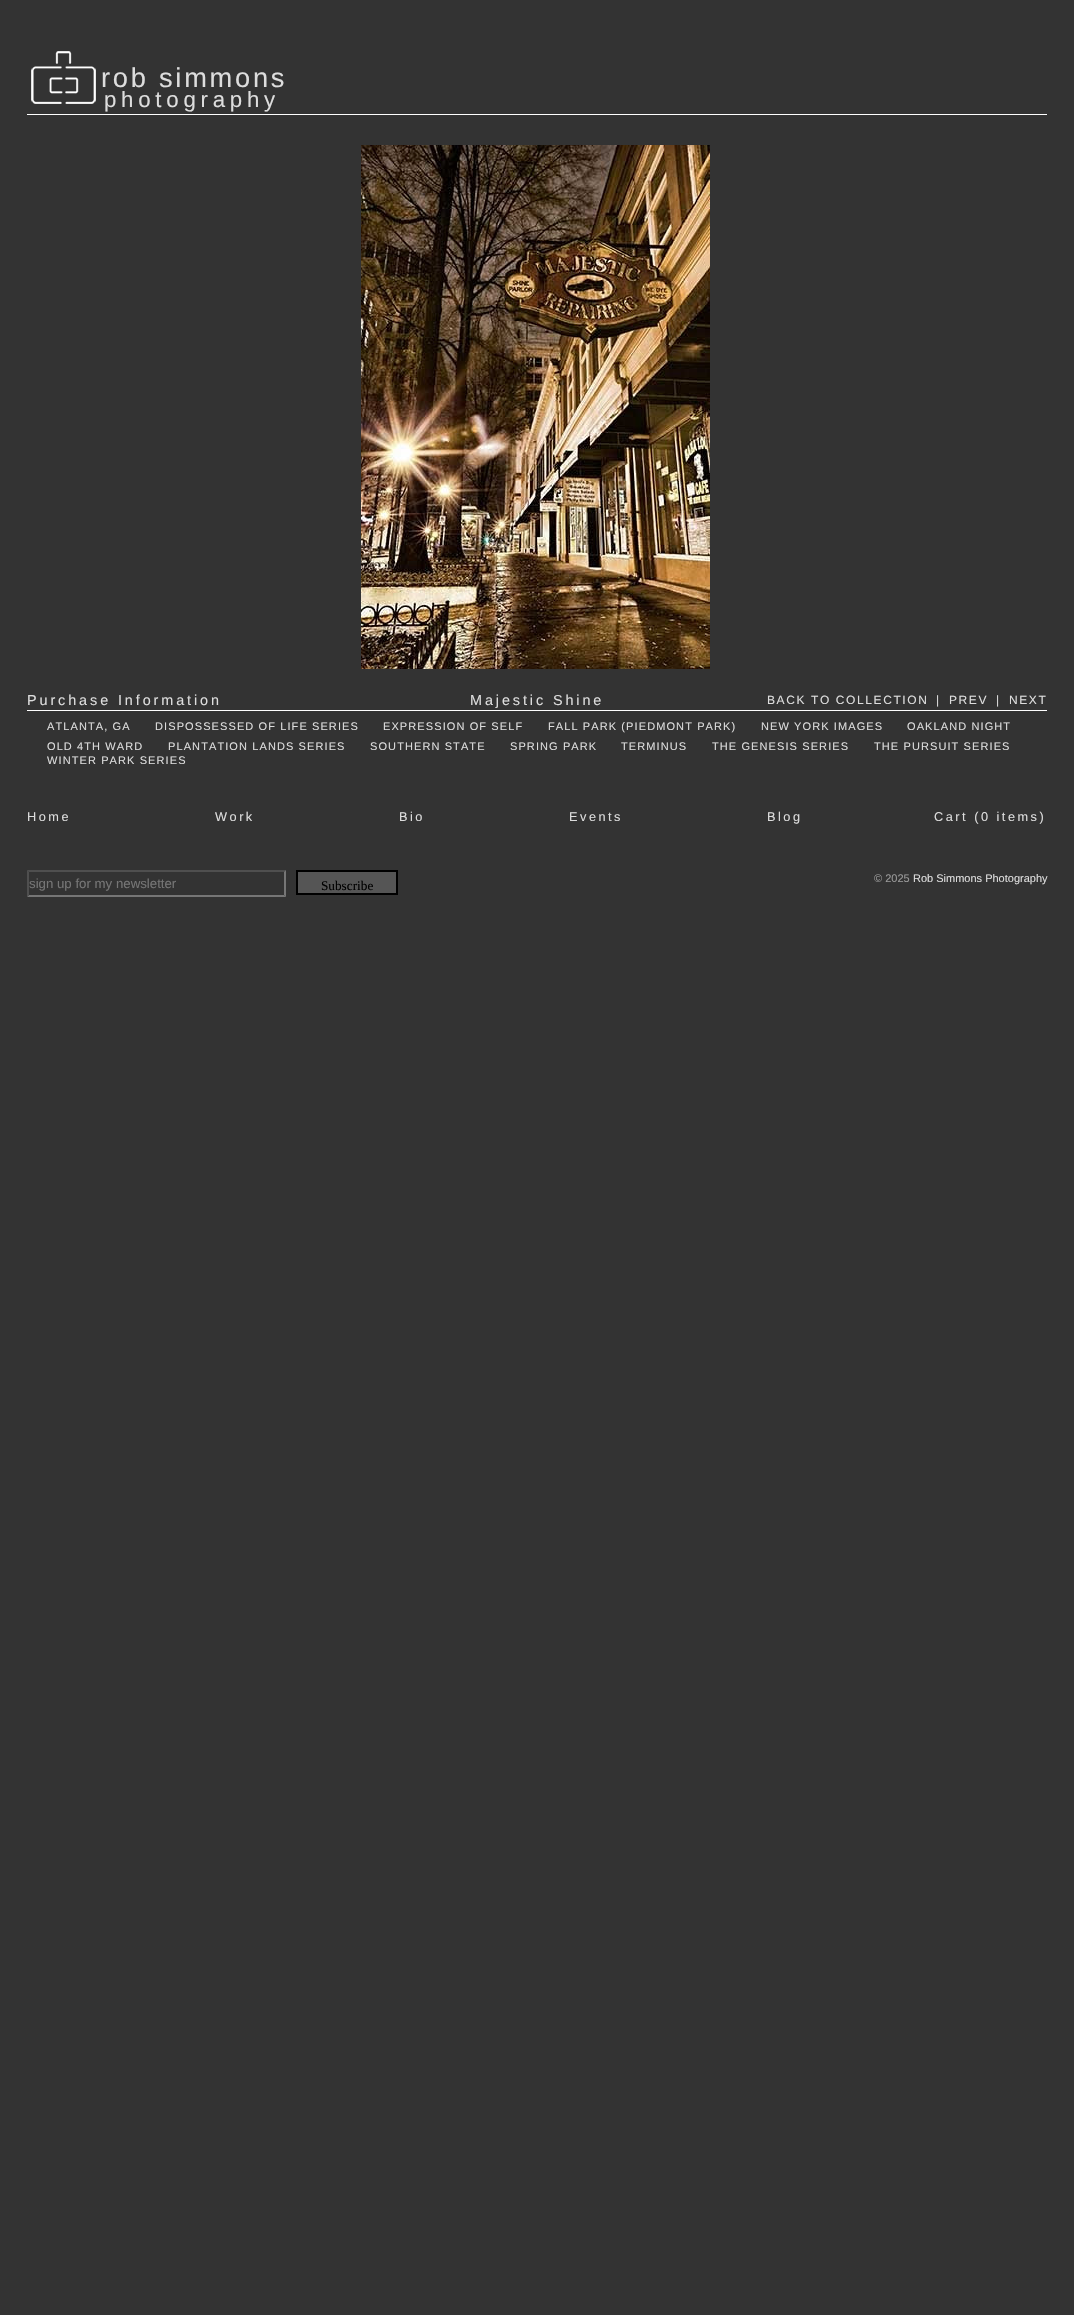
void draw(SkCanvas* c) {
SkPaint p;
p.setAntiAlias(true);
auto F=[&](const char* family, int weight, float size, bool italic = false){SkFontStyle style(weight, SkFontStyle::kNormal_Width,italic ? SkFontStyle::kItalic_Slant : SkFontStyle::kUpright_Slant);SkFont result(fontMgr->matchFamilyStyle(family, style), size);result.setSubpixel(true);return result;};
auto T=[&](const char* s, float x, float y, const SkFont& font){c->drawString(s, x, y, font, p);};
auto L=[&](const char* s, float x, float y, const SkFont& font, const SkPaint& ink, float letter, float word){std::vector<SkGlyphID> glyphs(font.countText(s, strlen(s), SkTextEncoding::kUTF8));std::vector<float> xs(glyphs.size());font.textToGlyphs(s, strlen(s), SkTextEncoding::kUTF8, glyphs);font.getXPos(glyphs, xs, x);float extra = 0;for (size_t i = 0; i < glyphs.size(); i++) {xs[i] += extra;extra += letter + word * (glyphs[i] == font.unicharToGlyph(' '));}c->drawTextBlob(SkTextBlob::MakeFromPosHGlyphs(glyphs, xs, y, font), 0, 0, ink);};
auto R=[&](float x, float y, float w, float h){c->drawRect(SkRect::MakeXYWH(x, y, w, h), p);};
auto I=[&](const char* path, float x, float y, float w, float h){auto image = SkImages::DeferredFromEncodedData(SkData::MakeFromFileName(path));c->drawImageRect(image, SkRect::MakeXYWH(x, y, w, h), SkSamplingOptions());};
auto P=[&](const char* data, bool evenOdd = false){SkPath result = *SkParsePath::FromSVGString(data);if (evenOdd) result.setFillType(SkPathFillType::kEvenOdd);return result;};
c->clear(0xff333333);
I("1.png",31,51,65,53);
auto f1 = F("Liberation Sans",400,27.25);
p.setColor(0xffdddddd);
L("rob simmons",101,87,f1,p,2.75,0);
auto f2 = F("Liberation Sans",400,22.25);
L("photography",104,107,f2,p,4.75,0);
p.setColor(0xffffffff);
R(27,114,1020,1);
R(27,710,1020,1);
I("2.png",361,145,349,524);
auto f3 = F("Liberation Sans",400,14.4);
p.setColor(0xffdddddd);
L("Purchase Information",27,705,f3,p,2.9,0);
L("Majestic Shine",470,705,f3,p,2.9,0);
auto f4 = F("Liberation Sans",400,12);
L("BACK TO COLLECTION",767,704,f4,p,1.6,0);
L("|",936,704,f4,p,1.6,0);
L("PREV",949,704,f4,p,1.6,0);
L("|",996,704,f4,p,1.6,0);
L("NEXT",1009,704,f4,p,1.6,0);
auto f5 = F("Liberation Sans",400,11);
L("ATLANTA, GA",47,730,f5,p,1.1,0);
L("DISPOSSESSED OF LIFE SERIES",155,730,f5,p,1.1,0);
L("EXPRESSION OF SELF",383,730,f5,p,1.1,0);
L("FALL PARK (PIEDMONT PARK)",548,730,f5,p,1.1,0);
L("NEW YORK IMAGES",761,730,f5,p,1.1,0);
L("OAKLAND NIGHT",907,730,f5,p,1.1,0);
L("OLD 4TH WARD",47,750,f5,p,1.1,0);
L("PLANTATION LANDS SERIES",168,750,f5,p,1.1,0);
L("SOUTHERN STATE",370,750,f5,p,1.1,0);
L("SPRING PARK",510,750,f5,p,1.1,0);
L("TERMINUS",621,750,f5,p,1.1,0);
L("THE GENESIS SERIES",712,750,f5,p,1.1,0);
L("THE PURSUIT SERIES",874,750,f5,p,1.1,0);
L("WINTER PARK SERIES",47,764,f5,p,1.1,0);
auto f6 = F("Liberation Sans",400,12.75);
L("Home",27,821,f6,p,2.5,0);
L("Work",215,821,f6,p,2.5,0);
L("Bio",399,821,f6,p,2.5,0);
L("Events",569,821,f6,p,2.5,0);
L("Blog",767,821,f6,p,2.5,0);
L("Cart (0 items)",934,821,f6,p,2.5,0);
p.setColor(0xff4f4f4f);
c->drawPath(P("M27 870h259l-2 2h-255z"),p);
p.setColor(0xff767676);
c->drawPath(P("M286 870v27l-2-2v-23z"),p);
c->drawPath(P("M286 897h-259l2-2h255z"),p);
p.setColor(0xff4f4f4f);
c->drawPath(P("M27 897v-27l2 2v23z"),p);
auto f7 = F("Liberation Sans",400,13.25);
p.setColor(0xff757575);
T("sign up for my newsletter",29,888,f7);
p.setColor(0xff555555);
c->drawRect(SkRect::MakeXYWH(297,871,100,23),p);
p.setStroke(true);
p.setStrokeWidth(2);
p.setColor(0xff000000);
c->drawRect(SkRect::MakeXYWH(297,871,100,23),p);
auto f8 = F("Liberation Serif",400,13.25);
p.setStroke(false);
T("Subscribe",321,890,f8);
p.setColor(0xff999999);
T("© 2025",874,882,f5);
p.setColor(0xffdddddd);
T("Rob Simmons Photography",913,882,f5);
}
